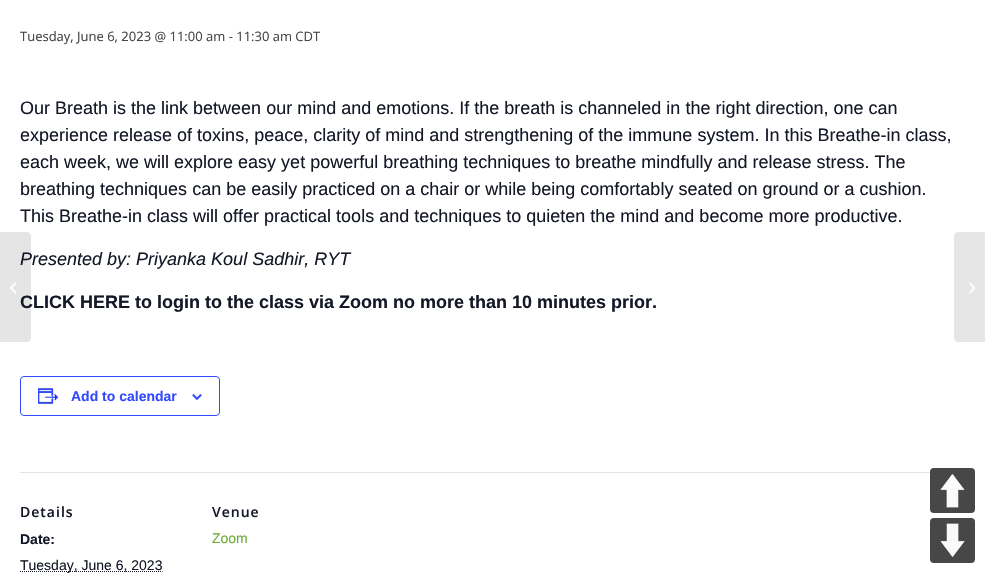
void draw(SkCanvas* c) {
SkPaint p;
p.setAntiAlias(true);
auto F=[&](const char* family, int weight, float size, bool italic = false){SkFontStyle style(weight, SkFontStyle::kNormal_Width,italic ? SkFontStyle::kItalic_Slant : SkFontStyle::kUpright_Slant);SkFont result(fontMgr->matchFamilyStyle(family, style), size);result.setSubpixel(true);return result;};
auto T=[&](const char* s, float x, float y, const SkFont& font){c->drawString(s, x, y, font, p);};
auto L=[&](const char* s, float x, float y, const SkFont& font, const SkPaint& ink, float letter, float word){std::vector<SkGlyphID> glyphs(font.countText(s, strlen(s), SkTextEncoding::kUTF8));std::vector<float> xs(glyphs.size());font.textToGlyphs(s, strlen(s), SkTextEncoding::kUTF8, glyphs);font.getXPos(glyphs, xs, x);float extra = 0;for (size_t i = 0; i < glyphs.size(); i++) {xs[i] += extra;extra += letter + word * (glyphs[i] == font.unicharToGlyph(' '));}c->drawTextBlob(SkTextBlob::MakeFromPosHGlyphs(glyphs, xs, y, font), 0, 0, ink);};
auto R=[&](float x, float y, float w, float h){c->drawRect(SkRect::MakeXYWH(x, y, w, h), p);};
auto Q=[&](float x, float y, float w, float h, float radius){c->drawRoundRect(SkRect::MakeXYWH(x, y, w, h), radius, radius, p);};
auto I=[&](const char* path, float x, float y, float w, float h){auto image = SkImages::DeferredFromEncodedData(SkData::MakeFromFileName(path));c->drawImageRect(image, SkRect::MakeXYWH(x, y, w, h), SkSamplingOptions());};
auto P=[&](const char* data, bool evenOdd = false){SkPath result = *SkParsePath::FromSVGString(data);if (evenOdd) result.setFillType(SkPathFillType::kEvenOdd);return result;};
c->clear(0xffffffff);
p.setColor(0x1a000000);
c->drawPath(P("M0 232h27c2 0 4 2 4 4v102c0 2-2 4-4 4h-27z"),p);
I("1.png",10,282,6,12);
auto f1 = F("Open Sans",400,13);
p.setColor(0xff444444);
T("Tuesday, June 6, 2023 @ 11:00 am - 11:30 am CDT",20,41,f1);
auto f2 = F("Liberation Sans",400,18);
p.setColor(0xff141827);
T("Our Breath is the link between our mind and emotions. If the breath is channeled in the right direction, one can",20,114,f2);
T("experience release of toxins, peace, clarity of mind and strengthening of the immune system. In this Breathe-in class,",20,141,f2);
T("each week, we will explore easy yet powerful breathing techniques to breathe mindfully and release stress. The",20,168,f2);
T("breathing techniques can be easily practiced on a chair or while being comfortably seated on ground or a cushion.",20,195,f2);
T("This Breathe-in class will offer practical tools and techniques to quieten the mind and become more productive.",20,222,f2);
auto f3 = F("Liberation Sans",400,18,true);
T("Presented by: Priyanka Koul Sadhir, RYT",20,265,f3);
auto f4 = F("Liberation Sans",700,18);
T("CLICK HERE to login to the class via Zoom no more than 10 minutes prior.",20,308,f4);
p.setStroke(true);
p.setStrokeWidth(1);
p.setColor(0xff334aff);
c->drawRoundRect(SkRect::MakeXYWH(20.5,376.5,199,39),3.5,3.5,p);
I("2.png",38,388,21,16);
auto f5 = F("Liberation Sans",700,14);
p.setStroke(false);
T("Add to calendar",71,401,f5);
I("3.png",192,394,10,6);
p.setColor(0xffe4e4e4);
R(20,472,910,1);
auto f6 = F("Open Sans",600,14);
p.setColor(0xff141827);
L("Details",20,517,f6,p,1,0);
T("Date:",20,544,f5);
p.setStroke(true);
p.setPathEffect(SkDashPathEffect::Make({{1,1}}, 0));
c->drawPath(P("M20 571.5h142.5"),p);
p.setPathEffect(nullptr);
auto f7 = F("Liberation Sans",400,14);
p.setStroke(false);
T("Tuesday, June 6, 2023",20,570,f7);
L("Venue",212,517,f6,p,1,0);
p.setColor(0xff6aaa37);
T("Zoom",212,543,f7);
p.setColor(0xffe6e6e6);
c->drawPath(P("M958 232h27v110h-27c-2 0-4-2-4-4v-102c0-2 2-4 4-4z"),p);
I("4.png",969,282,6,12);
p.setColor(0xffefefef);
Q(930,468,45,45,4);
I("5.png",930,468,45,45);
Q(930,518,45,45,4);
I("6.png",930,518,45,45);
}
